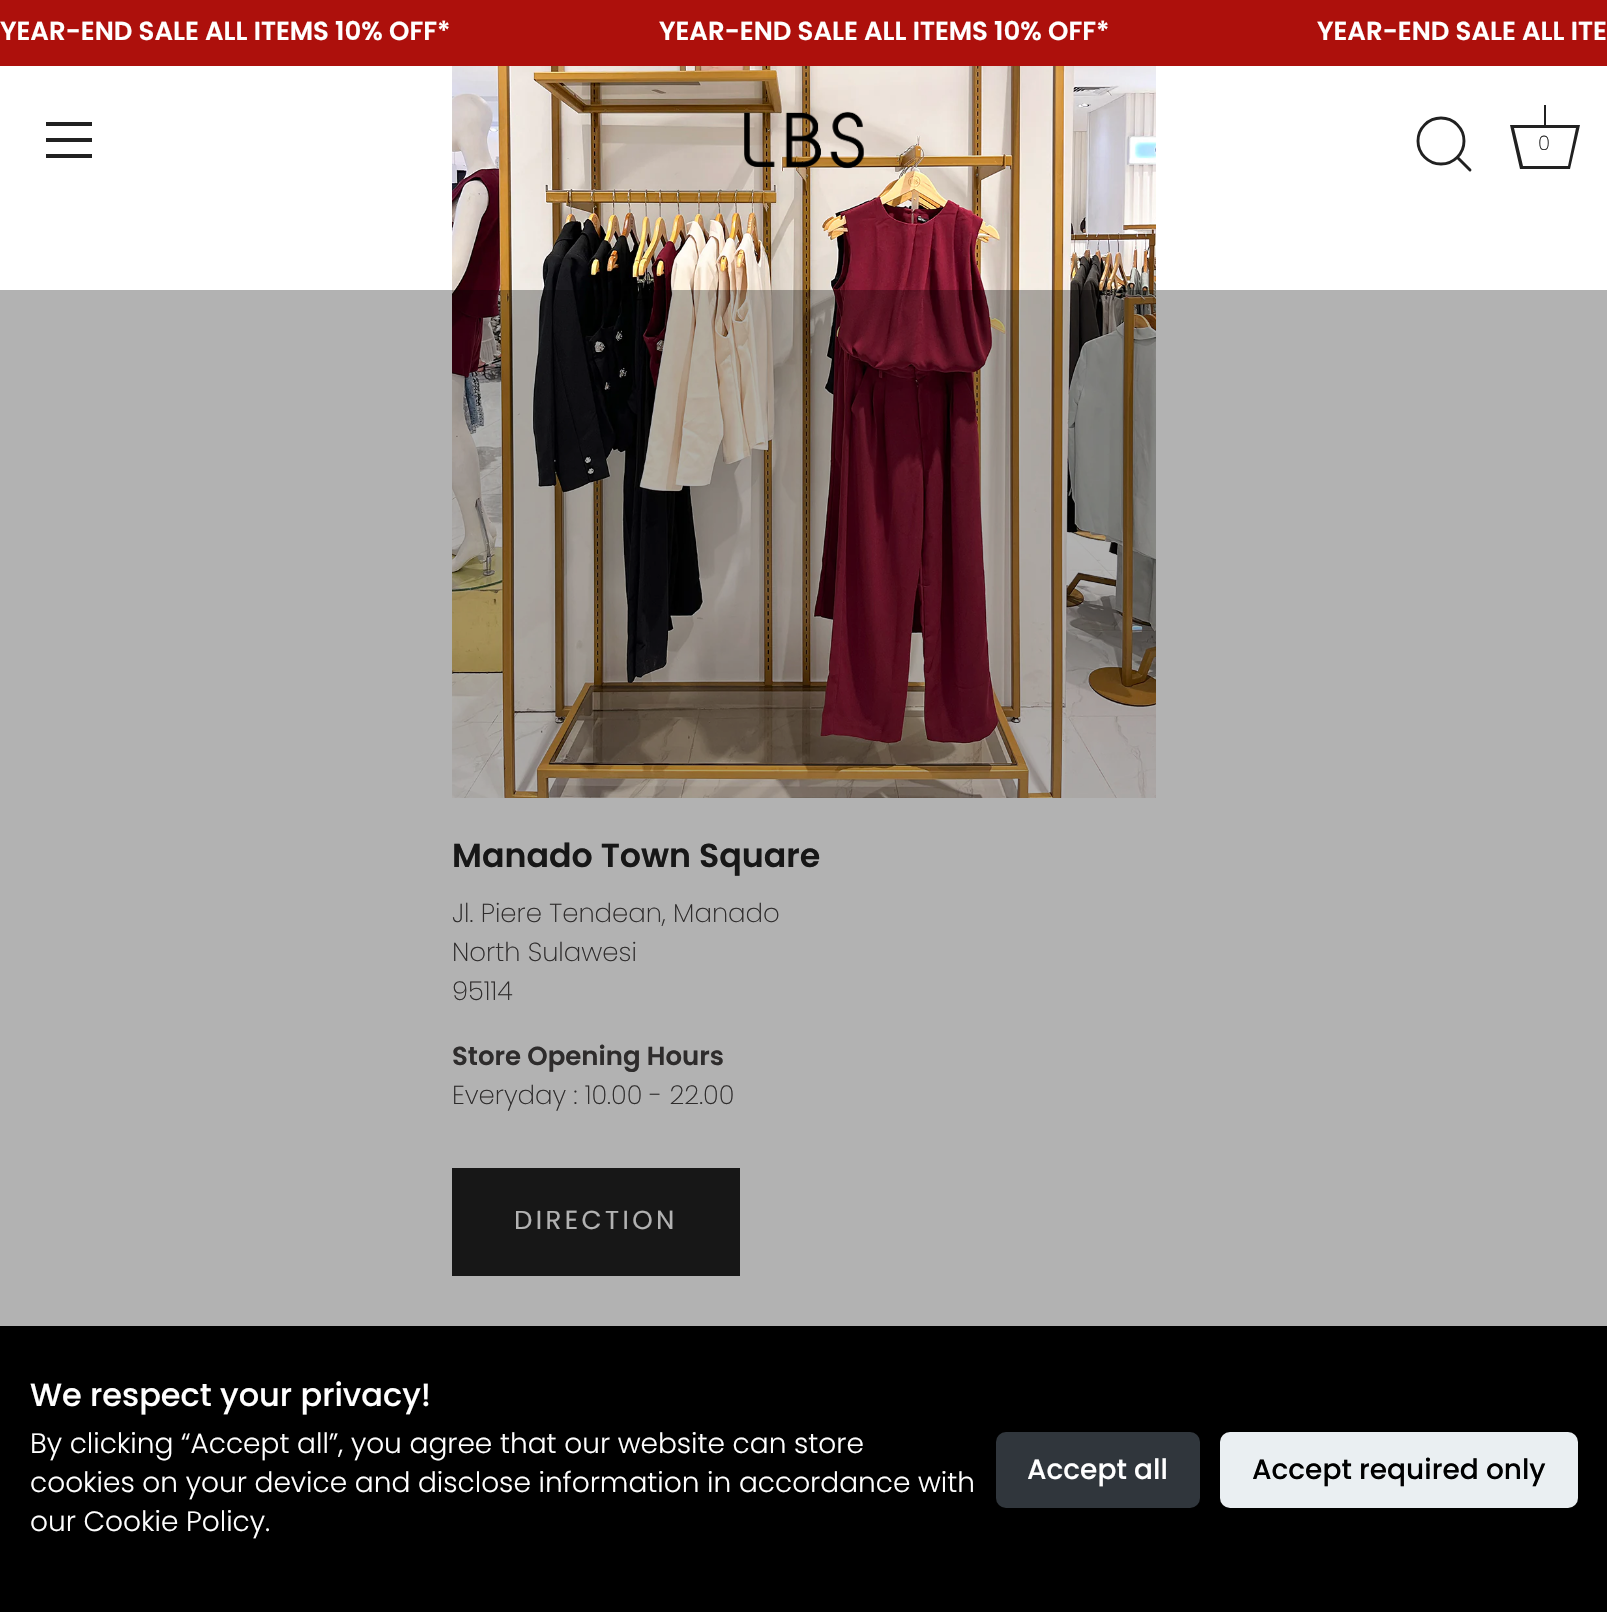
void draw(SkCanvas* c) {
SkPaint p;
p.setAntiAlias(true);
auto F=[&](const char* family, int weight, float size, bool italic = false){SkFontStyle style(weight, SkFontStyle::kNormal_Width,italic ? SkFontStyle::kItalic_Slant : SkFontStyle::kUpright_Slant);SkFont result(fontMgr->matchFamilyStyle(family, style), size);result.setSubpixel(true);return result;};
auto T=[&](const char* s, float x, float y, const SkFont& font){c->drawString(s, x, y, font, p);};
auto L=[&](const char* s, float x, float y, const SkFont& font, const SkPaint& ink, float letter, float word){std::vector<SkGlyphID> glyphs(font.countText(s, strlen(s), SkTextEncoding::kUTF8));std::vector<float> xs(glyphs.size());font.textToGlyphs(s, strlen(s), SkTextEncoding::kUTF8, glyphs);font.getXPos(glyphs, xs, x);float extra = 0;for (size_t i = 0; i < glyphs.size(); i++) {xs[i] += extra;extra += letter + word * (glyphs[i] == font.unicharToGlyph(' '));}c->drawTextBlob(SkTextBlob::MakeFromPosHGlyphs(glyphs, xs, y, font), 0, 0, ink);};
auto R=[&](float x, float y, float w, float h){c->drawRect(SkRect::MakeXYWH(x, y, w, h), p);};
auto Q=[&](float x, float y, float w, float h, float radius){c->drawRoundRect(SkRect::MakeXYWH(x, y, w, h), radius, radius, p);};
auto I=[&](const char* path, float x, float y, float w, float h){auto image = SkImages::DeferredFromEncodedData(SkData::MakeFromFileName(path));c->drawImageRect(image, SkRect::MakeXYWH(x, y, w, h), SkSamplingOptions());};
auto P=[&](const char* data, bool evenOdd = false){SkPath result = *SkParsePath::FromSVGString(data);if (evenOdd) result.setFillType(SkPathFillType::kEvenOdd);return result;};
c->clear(0xffffffff);
p.setColor(0xffad100c);
R(0,0,1607,66);
auto f1 = F("Poppins",600,26);
p.setColor(0xffffffff);
T("YEAR-END SALE ALL ITEMS 10% OFF*",0,40,f1);
T("YEAR-END SALE ALL ITEMS 10% OFF*",659,40,f1);
T("YEAR-END SALE ALL ITE",1317,40,f1);
p.setColor(0xff212121);
R(46,122,46,4);
R(46,138,46,4);
R(46,154,46,4);
I("2.png",452,66,704,732);
I("1.png",744,111,120,58);
p.setStroke(true);
p.setStrokeWidth(2.9);
c->drawCircle(1441,141,23,p);
p.setStrokeCap(SkPaint::kRound_Cap);
p.setStrokeJoin(SkPaint::kRound_Join);
c->drawPath(P("M1470 170l-12.5-12.5"),p);
p.setStroke(false);
R(1544,105,2,20);
c->drawPath(P("M1576 128l-8 38h-45l-9-38h62m4-3h-70l10 44h50z"),p);
auto f2 = F("Poppins",300,20);
T("0",1538,150,f2);
auto f3 = F("Poppins",600,33.25);
T("Manado Town Square",452,867,f3);
auto f4 = F("Poppins",300,26);
p.setColor(0xff423f3f);
T("Jl. Piere Tendean, Manado",452,922,f4);
T("North Sulawesi",452,961,f4);
T("95114",452,1000,f4);
T("Store Opening Hours",452,1065,f1);
T("Everyday : 10.00 - 22.00",452,1104,f4);
p.setColor(0xff212121);
R(452,1168,288,108);
auto f5 = F("Poppins",400,26);
p.setColor(0xffffffff);
L("DIRECTION",514,1229,f5,p,3.4,0);
p.setColor(0x4d000000);
R(0,290,1607,1036);
p.setColor(0xff000000);
R(0,1326,1607,286);
auto f6 = F("Poppins",500,32);
p.setColor(0xffffffff);
T("We respect your privacy!",30,1406,f6);
auto f7 = F("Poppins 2",300,28);
T("By clicking “Accept all”, you agree that our website can store",30,1453,f7);
T("cookies on your device and disclose information in accordance with",30,1492,f7);
T("our Cookie Policy.",30,1531,f7);
p.setColor(0xff30363c);
Q(996,1432,204,76,10);
auto f8 = F("Poppins",500,28);
p.setColor(0xffffffff);
T("Accept all",1027,1479,f8);
p.setColor(0xffeaeff2);
Q(1220,1432,358,76,10);
p.setColor(0xff000000);
T("Accept required only",1252,1479,f8);
}
